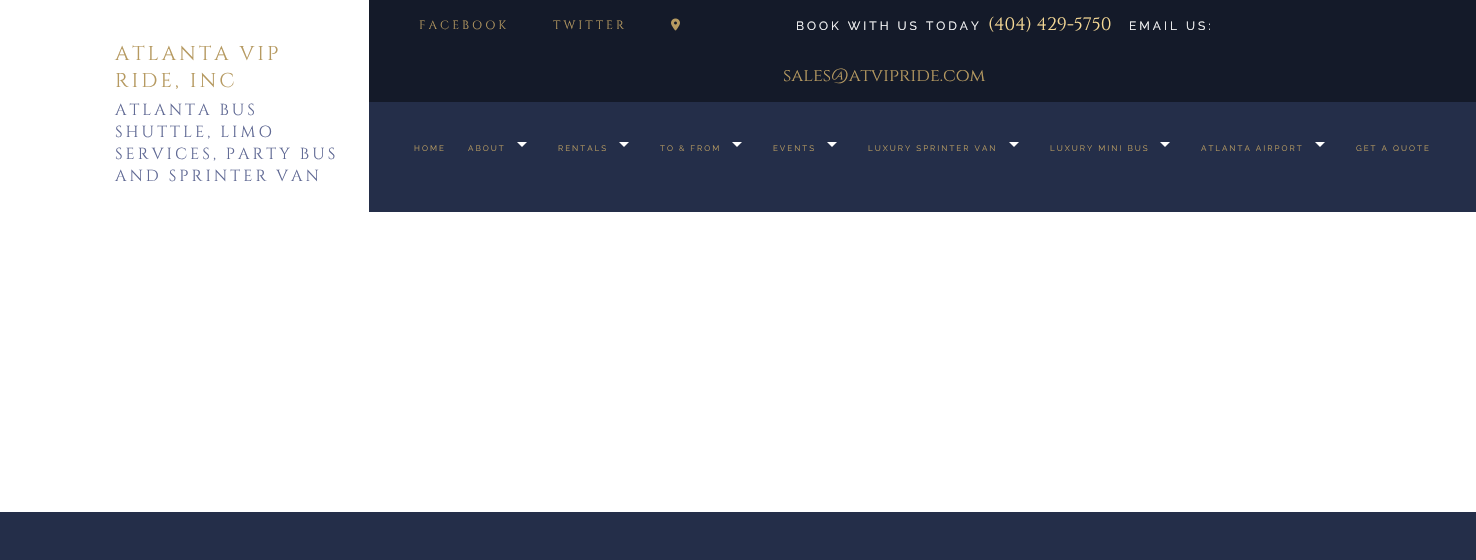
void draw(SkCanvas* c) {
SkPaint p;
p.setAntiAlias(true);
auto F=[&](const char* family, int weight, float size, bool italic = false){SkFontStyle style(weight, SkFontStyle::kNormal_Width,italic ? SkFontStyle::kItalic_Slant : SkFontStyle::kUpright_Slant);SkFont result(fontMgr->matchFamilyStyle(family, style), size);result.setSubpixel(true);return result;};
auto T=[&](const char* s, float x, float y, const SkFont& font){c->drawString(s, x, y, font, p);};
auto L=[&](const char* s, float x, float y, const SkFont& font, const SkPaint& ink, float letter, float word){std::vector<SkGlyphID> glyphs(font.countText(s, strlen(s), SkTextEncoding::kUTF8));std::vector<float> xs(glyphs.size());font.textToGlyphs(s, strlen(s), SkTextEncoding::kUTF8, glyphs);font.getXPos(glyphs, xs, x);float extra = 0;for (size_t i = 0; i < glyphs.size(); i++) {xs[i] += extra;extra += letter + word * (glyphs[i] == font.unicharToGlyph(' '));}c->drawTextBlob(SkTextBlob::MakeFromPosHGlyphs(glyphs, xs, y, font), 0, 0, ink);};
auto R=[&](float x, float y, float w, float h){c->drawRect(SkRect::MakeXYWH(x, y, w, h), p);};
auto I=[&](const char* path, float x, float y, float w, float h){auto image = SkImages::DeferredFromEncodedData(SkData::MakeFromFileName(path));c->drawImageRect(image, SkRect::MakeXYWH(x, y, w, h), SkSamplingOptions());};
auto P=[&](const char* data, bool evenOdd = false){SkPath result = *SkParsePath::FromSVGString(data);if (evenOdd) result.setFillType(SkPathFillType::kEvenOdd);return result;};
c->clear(0xffffffff);
p.setColor(0xff242e49);
R(369,102,1107,110);
auto f1 = F("Cinzel",400,20);
p.setColor(0xffb69a61);
L("ATLANTA VIP",115,60,f1,p,3,0);
L("RIDE, INC",115,87,f1,p,3,0);
auto f2 = F("Cinzel",400,16);
p.setColor(0xff606994);
L("ATLANTA BUS",115,115,f2,p,3,0);
L("SHUTTLE, LIMO",115,137,f2,p,3,0);
L("SERVICES, PARTY BUS",115,159,f2,p,3,0);
L("AND SPRINTER VAN",115,181,f2,p,3,0);
p.setColor(0xff141a29);
R(369,0,1107,102);
auto f3 = F("Cinzel",400,12);
p.setColor(0xffb69a61);
L("FACEBOOK",419,29,f3,p,3,0);
L("TWITTER",553,29,f3,p,3,0);
I("1.png",671,18,9,13);
auto f4 = F("Raleway",400,12);
p.setColor(0xffffffff);
L("BOOK WITH US TODAY",796,30,f4,p,3,0);
auto f5 = F("Cinzel",400,18);
p.setColor(0xfff7da96);
T("(404) 429-5750",988,30,f5);
p.setColor(0xffffffff);
L("EMAIL US:",1129,30,f4,p,3,0);
p.setColor(0xffb69a61);
T("sales@atvipride.com",783,81,f5);
auto f6 = F("Raleway",400,8);
L("HOME",414,151,f6,p,2,0);
p.setColor(0xffffffff);
c->drawPath(P("M517 142h10l-5 5z"),p);
p.setColor(0xffb69a61);
L("ABOUT",468,151,f6,p,2,0);
p.setColor(0xffffffff);
c->drawPath(P("M619 142h10l-5 5z"),p);
p.setColor(0xffb69a61);
L("RENTALS",558,151,f6,p,2,0);
p.setColor(0xffffffff);
c->drawPath(P("M732 142h10l-5 5z"),p);
p.setColor(0xffb69a61);
L("TO & FROM",660,151,f6,p,2,0);
p.setColor(0xffffffff);
c->drawPath(P("M827 142h10l-5 5z"),p);
p.setColor(0xffb69a61);
L("EVENTS",773,151,f6,p,2,0);
p.setColor(0xffffffff);
c->drawPath(P("M1009 142h10l-5 5z"),p);
p.setColor(0xffb69a61);
L("LUXURY SPRINTER VAN",868,151,f6,p,2,0);
p.setColor(0xffffffff);
c->drawPath(P("M1160 142h10l-5 5z"),p);
p.setColor(0xffb69a61);
L("LUXURY MINI BUS",1050,151,f6,p,2,0);
p.setColor(0xffffffff);
c->drawPath(P("M1315 142h10l-5 5z"),p);
p.setColor(0xffb69a61);
L("ATLANTA AIRPORT",1201,151,f6,p,2,0);
L("GET A QUOTE",1356,151,f6,p,2,0);
p.setColor(0xff242e49);
R(0,512,1476,48);
}
